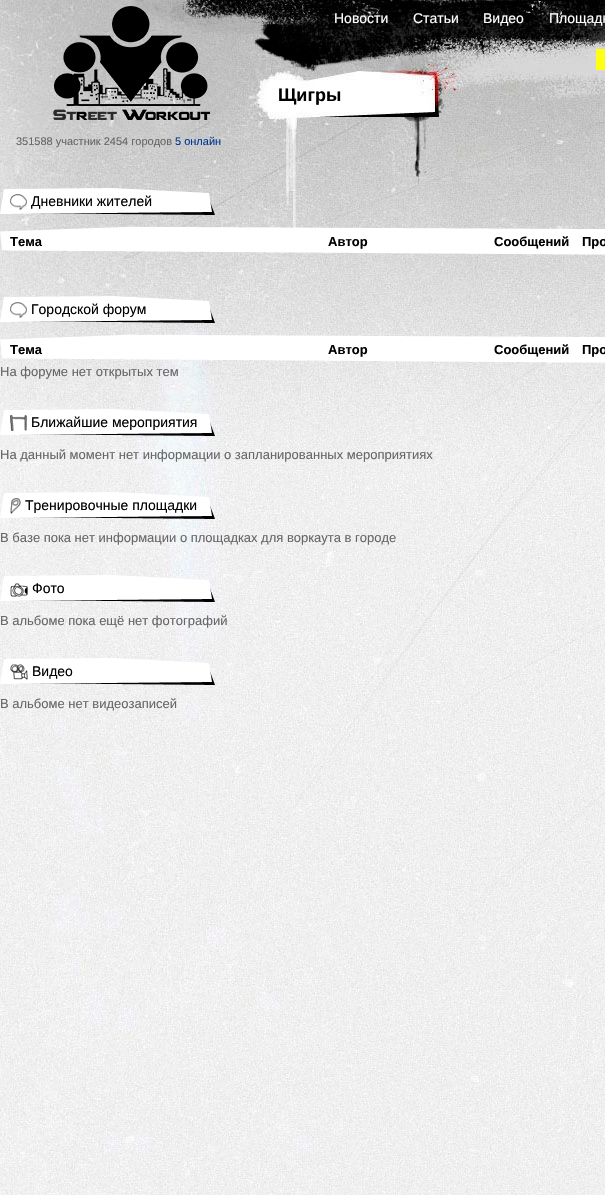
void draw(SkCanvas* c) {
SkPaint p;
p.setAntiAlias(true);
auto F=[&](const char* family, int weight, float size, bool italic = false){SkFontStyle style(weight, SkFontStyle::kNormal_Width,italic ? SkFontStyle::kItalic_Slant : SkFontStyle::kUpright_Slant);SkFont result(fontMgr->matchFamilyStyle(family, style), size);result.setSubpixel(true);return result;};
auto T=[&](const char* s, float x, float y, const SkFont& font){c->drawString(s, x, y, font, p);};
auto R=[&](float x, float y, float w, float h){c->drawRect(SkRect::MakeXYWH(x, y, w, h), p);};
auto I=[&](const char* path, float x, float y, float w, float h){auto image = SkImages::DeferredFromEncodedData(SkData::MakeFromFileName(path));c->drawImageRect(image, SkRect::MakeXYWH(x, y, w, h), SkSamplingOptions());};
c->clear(0xffffffff);
I("1.png",0,0,605,1195);
auto f1 = F("Liberation Sans",400,14);
p.setColor(0xffffffff);
T("Новости",334,23,f1);
T("Статьи",413,23,f1);
T("Видео",483,23,f1);
T("Площадк",549,23,f1);
p.setColor(0xffffff16);
R(596,49,9,21);
auto f2 = F("Liberation Sans",700,18);
p.setColor(0xff000000);
T("Щигры",278,101,f2);
auto f3 = F("Liberation Sans",400,11);
p.setColor(0xff666666);
T("351588 участник 2454 городов",16,145,f3);
p.setColor(0xff003592);
T("5 онлайн",175,145,f3);
I("2.png",0,188,215,27);
I("3.png",10,194,17,16);
p.setColor(0xff000000);
T("Дневники жителей",31,206,f1);
I("4.png",0,226,605,29);
auto f4 = F("Liberation Sans",700,13);
T("Тема",10,246,f4);
T("Автор",328,246,f4);
T("Сообщений",494,246,f4);
T("Про",582,246,f4);
I("5.png",0,296,215,27);
I("3.png",10,302,17,16);
T("Городской форум",31,314,f1);
I("6.png",0,334,605,29);
T("Тема",10,354,f4);
T("Автор",328,354,f4);
T("Сообщений",494,354,f4);
T("Про",582,354,f4);
auto f5 = F("Liberation Sans",400,13);
p.setColor(0xff666666);
T("На форуме нет открытых тем",0,376,f5);
I("7.png",0,409,215,27);
I("8.png",10,415,17,16);
p.setColor(0xff000000);
T("Ближайшие мероприятия",31,427,f1);
p.setColor(0xff666666);
T("На данный момент нет информации о запланированных мероприятиях",0,459,f5);
I("9.png",0,492,215,27);
I("10.png",10,498,11,16);
p.setColor(0xff000000);
T("Тренировочные площадки",25,510,f1);
p.setColor(0xff666666);
T("В базе пока нет информации о площадках для воркаута в городе",0,542,f5);
I("11.png",0,575,215,27);
I("12.png",10,583,18,14);
p.setColor(0xff000000);
T("Фото",32,593,f1);
p.setColor(0xff666666);
T("В альбоме пока ещё нет фотографий",0,625,f5);
I("13.png",0,658,215,27);
I("14.png",10,664,18,16);
p.setColor(0xff000000);
T("Видео",32,676,f1);
p.setColor(0xff666666);
T("В альбоме нет видеозаписей",0,708,f5);
}
